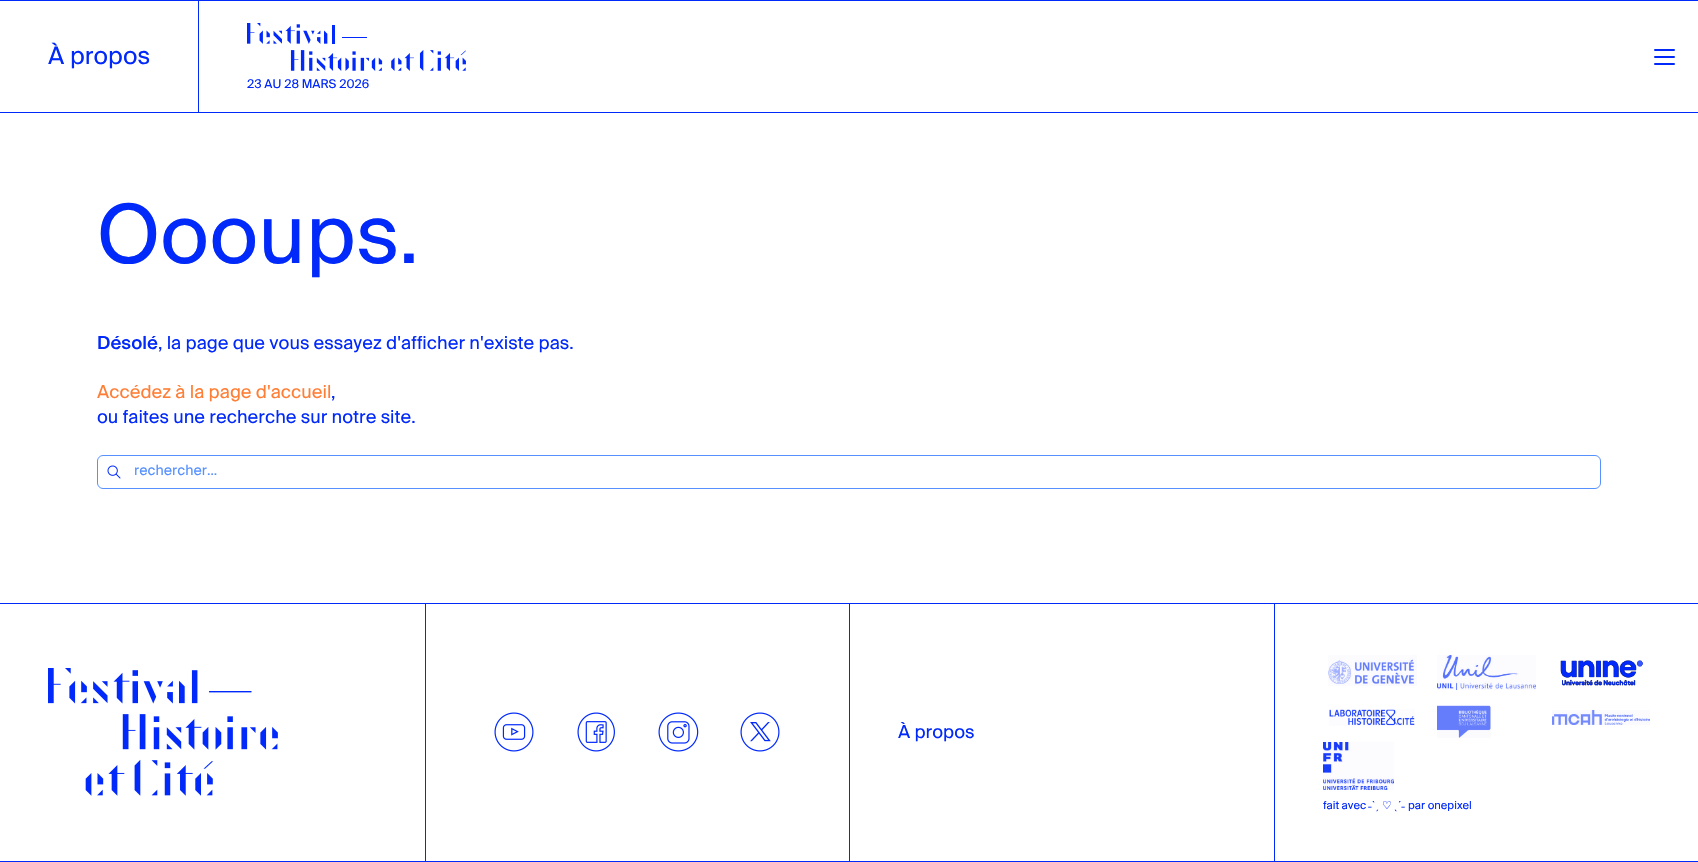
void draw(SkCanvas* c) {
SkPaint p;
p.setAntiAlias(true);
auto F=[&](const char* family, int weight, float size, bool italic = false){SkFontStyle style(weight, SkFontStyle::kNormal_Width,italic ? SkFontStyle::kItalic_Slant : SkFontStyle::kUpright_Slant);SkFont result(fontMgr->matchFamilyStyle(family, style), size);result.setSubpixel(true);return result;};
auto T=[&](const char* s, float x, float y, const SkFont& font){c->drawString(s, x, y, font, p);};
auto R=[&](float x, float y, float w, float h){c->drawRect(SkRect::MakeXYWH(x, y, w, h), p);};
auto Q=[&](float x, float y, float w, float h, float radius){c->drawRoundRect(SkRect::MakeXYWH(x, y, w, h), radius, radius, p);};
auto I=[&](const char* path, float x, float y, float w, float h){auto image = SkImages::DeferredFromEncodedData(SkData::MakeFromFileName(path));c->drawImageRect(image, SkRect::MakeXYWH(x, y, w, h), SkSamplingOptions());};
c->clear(0xffffffff);
p.setColor(0xff0129fa);
R(0,0,1698,1);
R(0,112,1698,1);
R(198,1,1,111);
auto f1 = F("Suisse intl",400,24);
T("À propos",48,64,f1);
Q(1654,49,21,2,1);
Q(1654,56,21,2,1);
Q(1654,63,21,2,1);
I("1.png",247,23,219,48);
auto f2 = F("Suisse intl",400,12);
T("23 AU 28 MARS 2026",247,88,f2);
auto f3 = F("Suisse intl",400,81.5);
T("Oooups.",97,263,f3);
auto f4 = F("Suisse intl",500,18);
T("Désolé",97,349,f4);
auto f5 = F("Suisse intl",400,18);
T(", la page que vous essayez d'afficher n'existe pas.",158,349,f5);
p.setColor(0xffff7e35);
T("Accédez à la page d'accueil",97,398,f5);
p.setColor(0xff0129fa);
T(",",331,398,f5);
T("ou faites une recherche sur notre site.",97,423,f5);
p.setStroke(true);
p.setStrokeWidth(1);
p.setColor(0xff5791ff);
c->drawRoundRect(SkRect::MakeXYWH(97.5,455.5,1503,33),5.5,5.5,p);
I("2.png",107,465,14,14);
auto f6 = F("Suisse intl",400,14);
p.setStroke(false);
T("rechercher...",134,475,f6);
p.setColor(0xff0129fa);
R(0,603,1698,1);
R(0,861,1698,1);
I("3.png",48,668,230,128);
R(425,604,1,257);
I("4.png",494,712,40,40);
I("5.png",577,712,38,40);
I("6.png",658,712,41,40);
I("7.png",740,712,40,40);
R(849,604,1,257);
T("À propos",898,738,f5);
R(1274,604,1,257);
I("8.png",1328,655,89,31);
I("9.png",1437,655,99,35);
I("10.png",1560,660,83,26);
I("11.png",1329,709,86,17);
I("12.png",1437,705,54,33);
I("13.png",1552,710,98,15);
I("14.png",1323,742,71,48);
auto f7 = F("Suisse intl",400,11);
T("fait avec",1323,809,f7);
auto f8 = F("Liberation Sans",400,11);
T("˗ˋˏ",1368,809,f8);
auto f9 = F("DejaVu Sans",400,11);
T("♡",1382,809,f9);
T("ˎˊ˗",1394,809,f8);
T("par onepixel",1408,809,f7);
}
